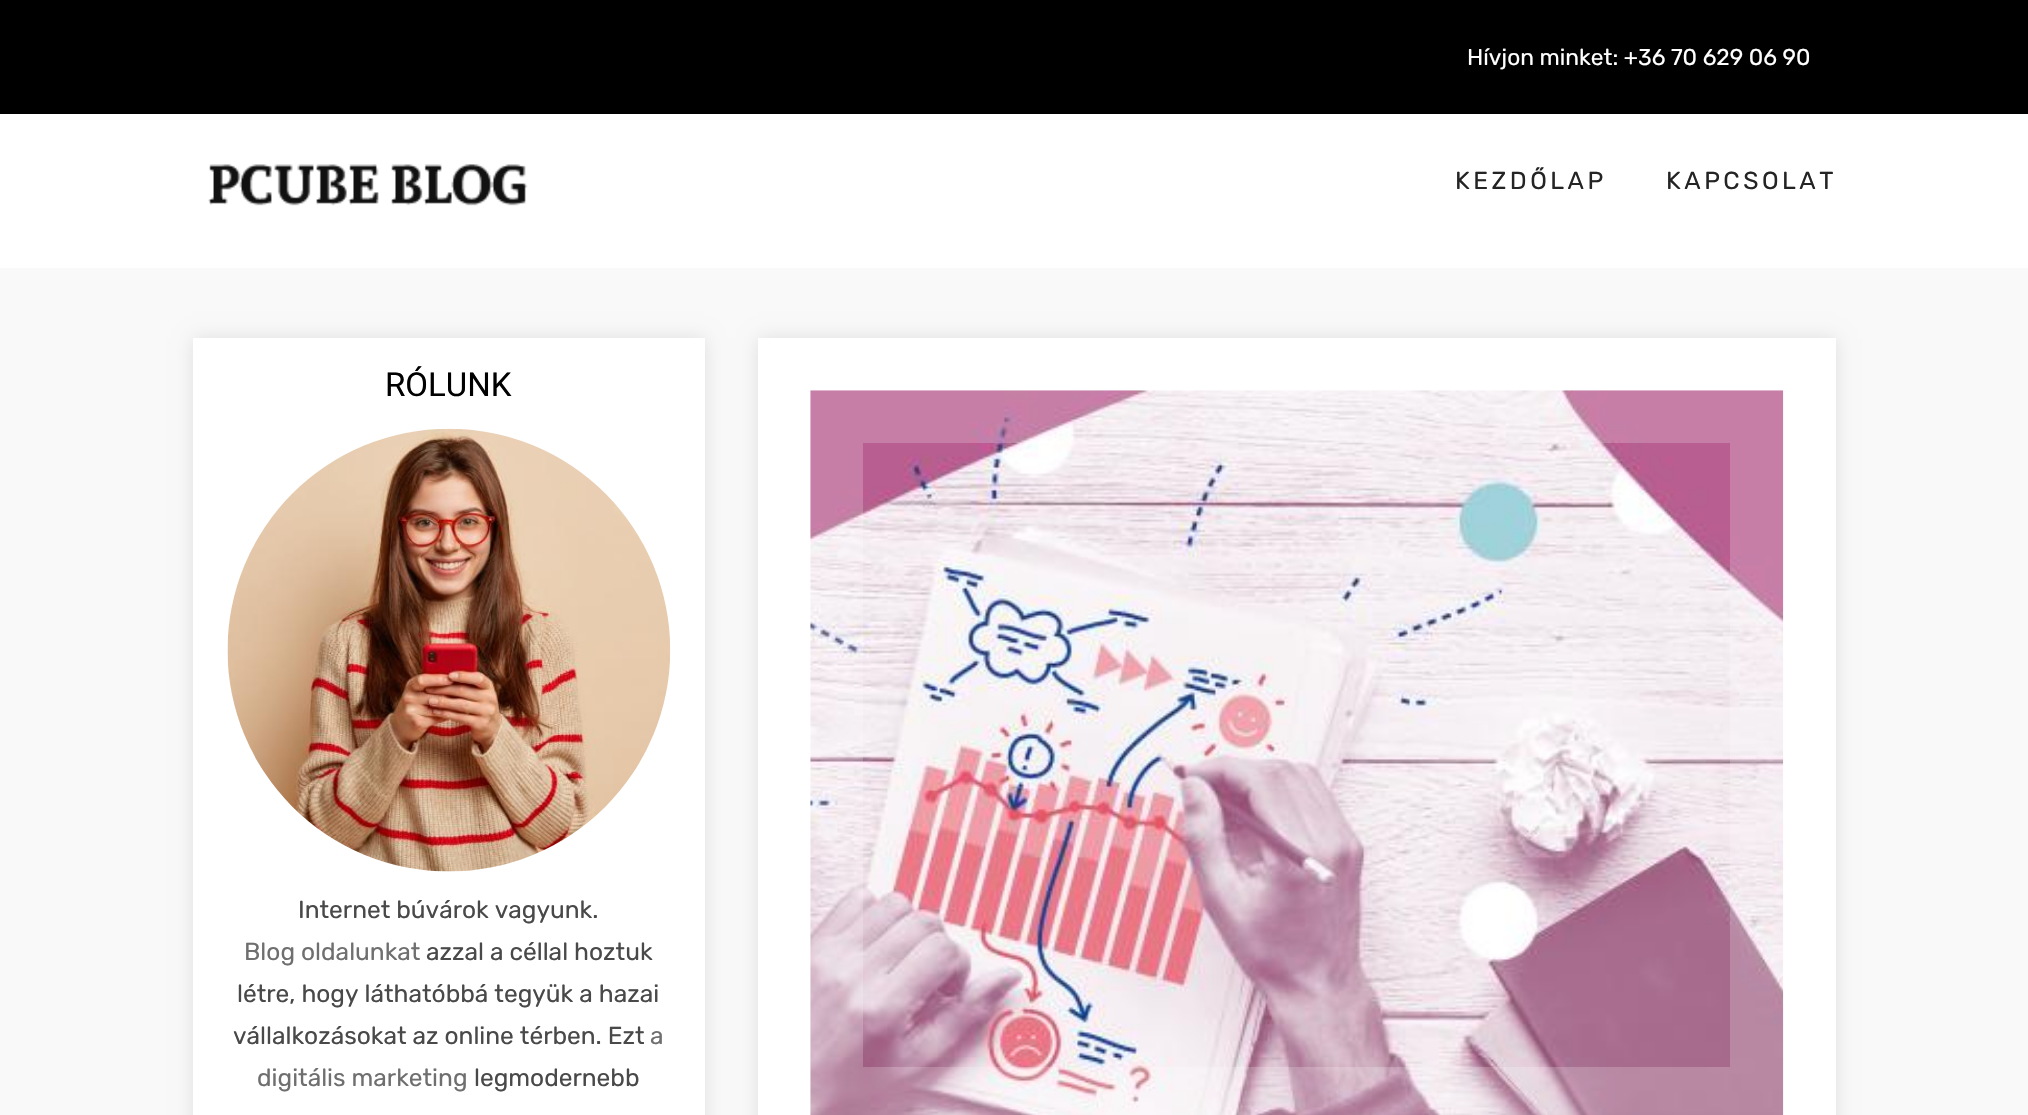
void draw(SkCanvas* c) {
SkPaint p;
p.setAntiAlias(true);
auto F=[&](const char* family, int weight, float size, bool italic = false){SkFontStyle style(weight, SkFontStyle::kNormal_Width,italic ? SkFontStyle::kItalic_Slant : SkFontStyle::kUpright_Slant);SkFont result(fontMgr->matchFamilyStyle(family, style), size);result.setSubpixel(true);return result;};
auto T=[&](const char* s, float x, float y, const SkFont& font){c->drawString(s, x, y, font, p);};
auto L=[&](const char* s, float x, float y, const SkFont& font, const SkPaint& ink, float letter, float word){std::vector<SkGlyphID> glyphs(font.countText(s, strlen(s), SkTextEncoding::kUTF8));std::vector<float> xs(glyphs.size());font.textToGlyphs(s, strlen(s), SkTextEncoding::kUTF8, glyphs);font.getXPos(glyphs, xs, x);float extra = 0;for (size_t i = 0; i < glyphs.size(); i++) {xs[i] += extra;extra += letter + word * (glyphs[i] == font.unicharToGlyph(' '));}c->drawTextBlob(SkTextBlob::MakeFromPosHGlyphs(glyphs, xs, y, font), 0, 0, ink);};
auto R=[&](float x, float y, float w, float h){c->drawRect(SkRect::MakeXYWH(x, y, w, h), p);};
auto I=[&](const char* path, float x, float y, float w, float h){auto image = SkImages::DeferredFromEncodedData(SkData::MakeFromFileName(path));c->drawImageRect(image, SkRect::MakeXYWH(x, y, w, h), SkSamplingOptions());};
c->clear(0xfff9f9f9);
p.setColor(0xff000000);
R(0,0,2028,114);
auto f1 = F("Rubik",400,22.75);
p.setColor(0xffffffff);
T("Hívjon minket: +36 70 629 06 90",1467,65,f1);
R(0,114,2028,154);
I("1.png",208,164,320,42);
auto f2 = F("Rubik",400,24.5);
p.setColor(0xff242424);
L("KEZDŐLAP",1455,189,f2,p,3.5,0);
L("KAPCSOLAT",1666,189,f2,p,3.5,0);
p.setColor(0x1a000000);
p.setMaskFilter(SkMaskFilter::MakeBlur(kNormal_SkBlurStyle, 9));
c->drawRect(SkRect::MakeXYWH(193,338,512,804),p);
p.setMaskFilter(nullptr);
p.setColor(0xffffffff);
R(193,338,512,777);
auto f3 = F("Roboto",400,33);
p.setColor(0xff000000);
T("RÓLUNK",385,396,f3);
I("2.png",227,428,444,444);
p.setColor(0xff494949);
T("Internet búvárok vagyunk.",298,918,f2);
p.setColor(0xff6f6f6f);
T("Blog oldalunkat",244,960,f2);
p.setColor(0xff494949);
T("azzal a céllal hoztuk",426,960,f2);
T("létre, hogy láthatóbbá tegyük a hazai",237,1002,f2);
T("vállalkozásokat az online térben. Ezt",233,1044,f2);
p.setColor(0xff6f6f6f);
T("a",650,1044,f2);
T("digitális marketing",257,1086,f2);
p.setColor(0xff494949);
T("legmodernebb",474,1086,f2);
p.setColor(0x1a000000);
p.setMaskFilter(SkMaskFilter::MakeBlur(kNormal_SkBlurStyle, 9));
c->drawRect(SkRect::MakeXYWH(758,338,1078,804),p);
p.setMaskFilter(nullptr);
p.setColor(0xffffffff);
R(758,338,1078,777);
I("3.png",810,390,974,725);
p.setStroke(true);
p.setStrokeWidth(53);
p.setColor(0x33ffffff);
c->drawRect(SkRect::MakeXYWH(836.5,416.5,920,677),p);
}
